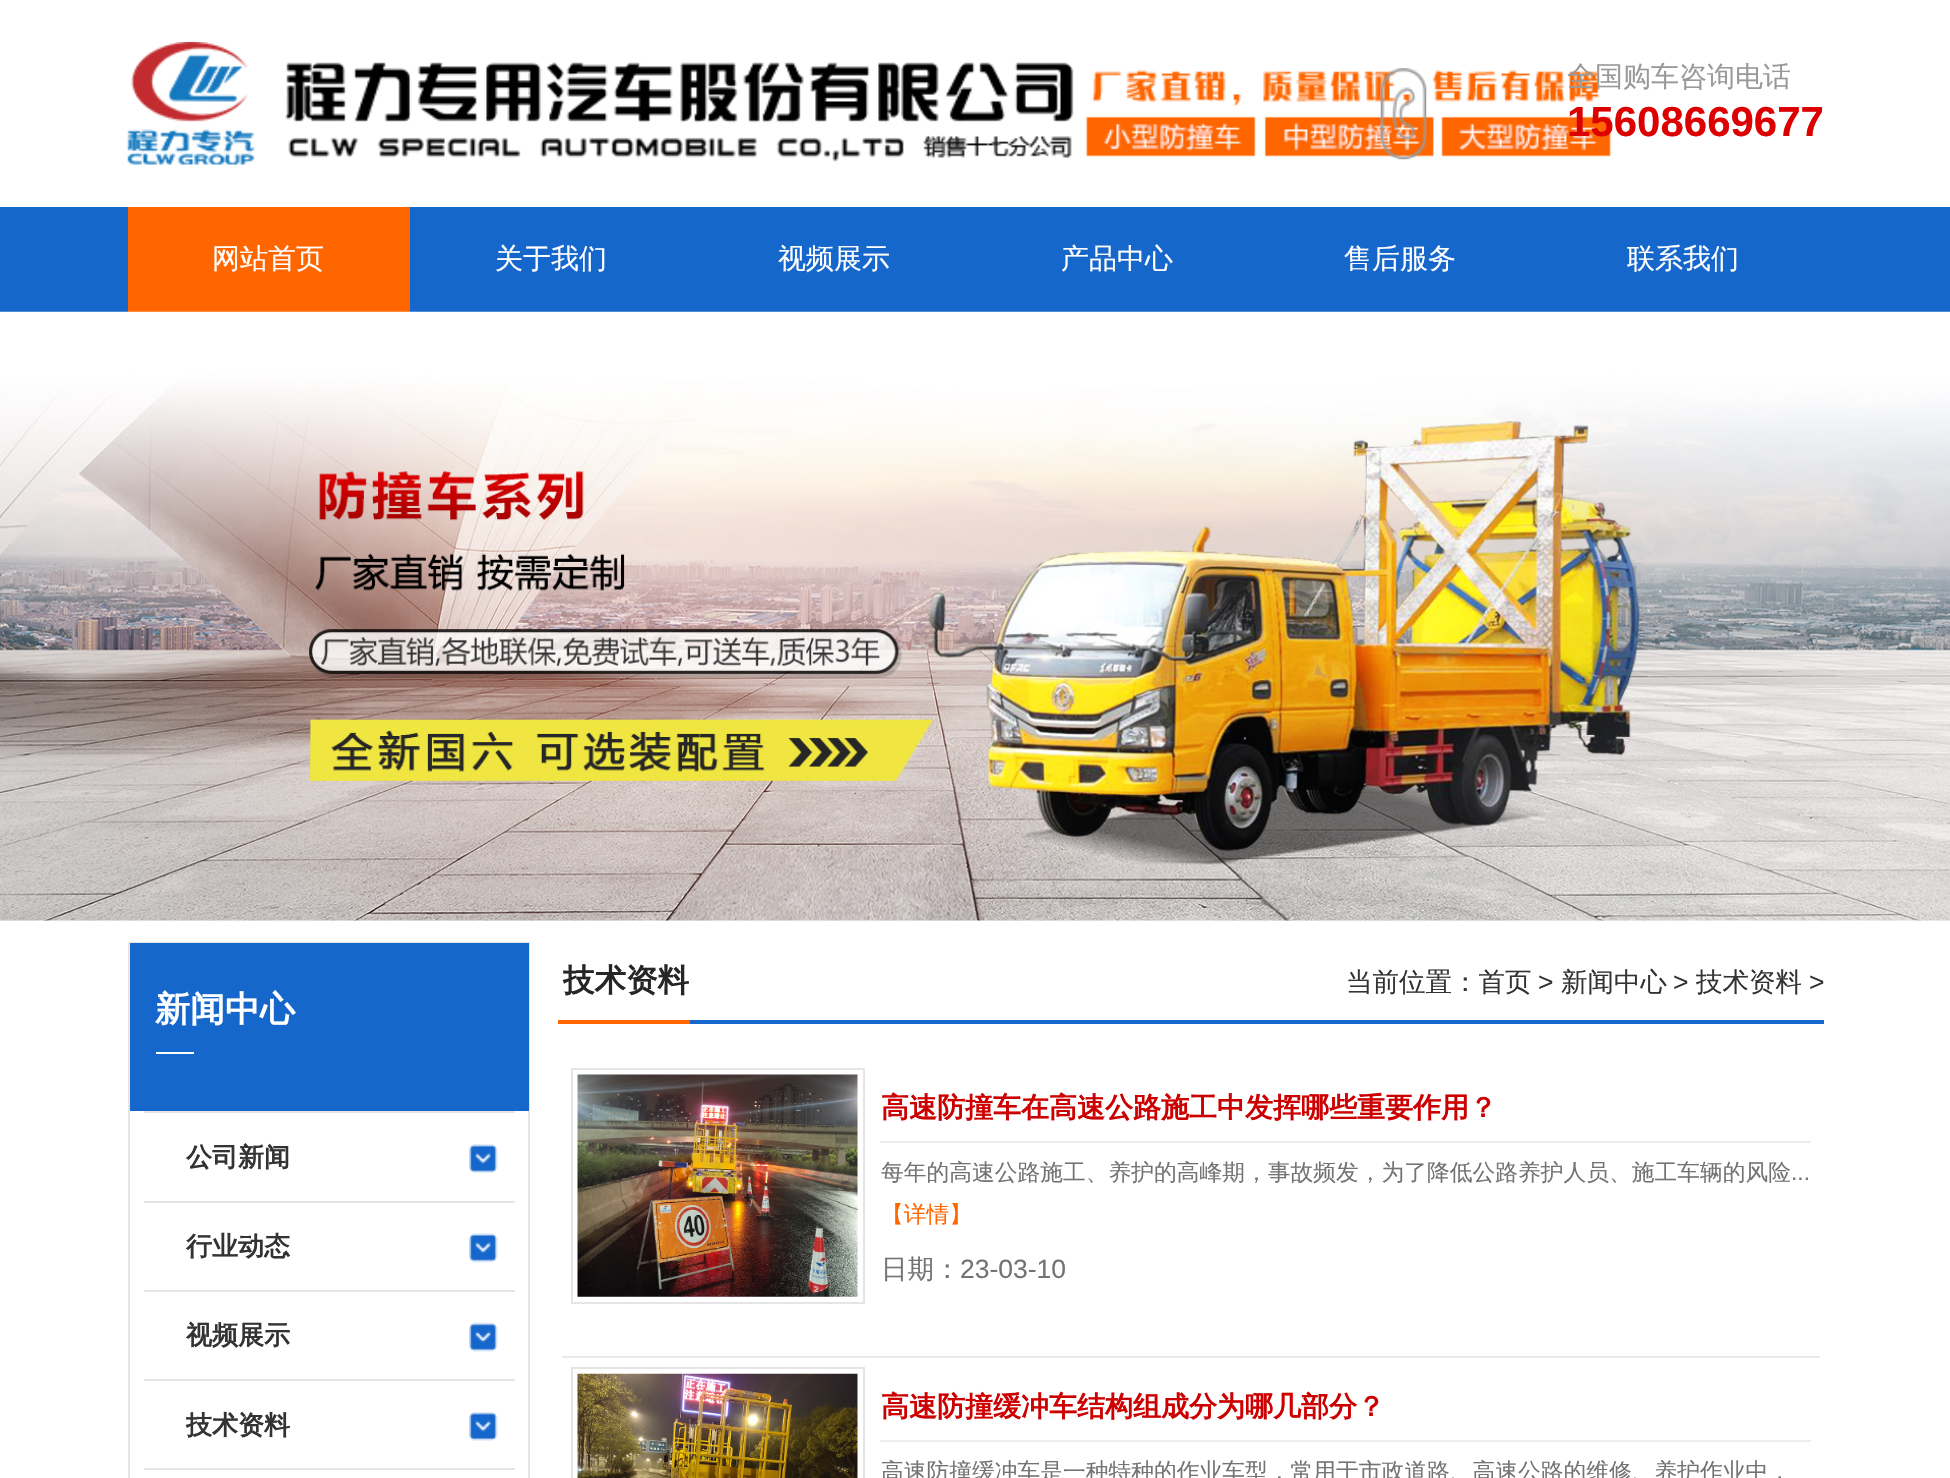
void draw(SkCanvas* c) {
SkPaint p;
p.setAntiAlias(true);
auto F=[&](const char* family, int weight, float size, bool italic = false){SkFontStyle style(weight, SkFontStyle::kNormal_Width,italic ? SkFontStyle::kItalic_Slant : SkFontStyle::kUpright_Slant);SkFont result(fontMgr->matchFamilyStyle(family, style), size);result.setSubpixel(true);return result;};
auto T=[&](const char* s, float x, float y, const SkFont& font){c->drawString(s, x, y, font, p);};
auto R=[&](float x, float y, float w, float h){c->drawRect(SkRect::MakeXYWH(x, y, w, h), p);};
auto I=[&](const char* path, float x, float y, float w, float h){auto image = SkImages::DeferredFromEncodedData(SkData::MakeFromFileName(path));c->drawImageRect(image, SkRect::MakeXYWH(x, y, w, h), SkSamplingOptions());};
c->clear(0xffffffff);
I("1.png",127,42,1484,123);
I("2.png",1380,68,47,92);
auto f1 = F("WenQuanYi Zen Hei",500,28);
p.setColor(0xff999999);
T("全国购车咨询电话",1567,86,f1);
auto f2 = F("Liberation Sans",700,42);
p.setColor(0xffdd0000);
T("15608669677",1567,136,f2);
p.setColor(0xff1667cb);
R(0,207,1950,105);
p.setColor(0xffff6600);
R(128,207,282,105);
p.setColor(0xffffffff);
T("网站首页",212,268,f1);
T("关于我们",495,268,f1);
T("视频展示",778,268,f1);
T("产品中心",1061,268,f1);
T("售后服务",1344,268,f1);
T("联系我们",1627,268,f1);
p.setColor(0xfff8f8f8);
R(0,920,1950,1);
I("3.png",0,311,1950,610);
p.setStroke(true);
p.setStrokeWidth(2);
p.setColor(0xffe5e5e5);
c->drawRect(SkRect::MakeXYWH(129,943,400,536),p);
p.setStroke(false);
p.setColor(0xff1667cb);
R(130,943,399,168);
auto f3 = F("WenQuanYi Zen Hei",700,35);
p.setColor(0xffffffff);
T("新闻中心",155,1021,f3);
R(156,1052,38,2);
p.setColor(0xffe5e5e5);
R(144,1111,371,2);
auto f4 = F("WenQuanYi Zen Hei",700,26);
p.setColor(0xff333333);
T("公司新闻",186,1166,f4);
I("4.png",469,1144,29,29);
p.setColor(0xffe5e5e5);
R(144,1201,371,2);
p.setColor(0xff333333);
T("行业动态",186,1255,f4);
I("5.png",469,1233,29,30);
p.setColor(0xffe5e5e5);
R(144,1290,371,2);
p.setColor(0xff333333);
T("视频展示",186,1344,f4);
I("6.png",469,1322,29,30);
p.setColor(0xffe5e5e5);
R(144,1379,371,2);
p.setColor(0xff333333);
T("技术资料",186,1434,f4);
I("7.png",469,1412,29,29);
p.setColor(0xffe5e5e5);
R(144,1468,371,2);
p.setColor(0xff1667cb);
R(690,1020,1134,4);
auto f5 = F("WenQuanYi Zen Hei",700,31.5);
p.setColor(0xff262626);
T("技术资料",563,991,f5);
p.setColor(0xffff6600);
R(558,1020,132,4);
auto f6 = F("WenQuanYi Zen Hei",500,26.5);
p.setColor(0xff333333);
T("当前位置：首页",1346,991,f6);
auto f7 = F("Liberation Sans",400,26.5);
T(">",1538,991,f7);
T("新闻中心",1561,991,f6);
T(">",1673,991,f7);
T("技术资料",1696,991,f6);
T(">",1809,991,f7);
p.setColor(0xffeaeaea);
R(562,1356,1258,2);
p.setStroke(true);
p.setColor(0xffe5e5e5);
c->drawRect(SkRect::MakeXYWH(572,1069,292,234),p);
I("8.png",577,1074,281,223);
p.setStroke(false);
p.setColor(0xffededed);
R(880,1141,931,2);
auto f8 = F("WenQuanYi Zen Hei",700,28);
p.setColor(0xffcc0000);
T("高速防撞车在高速公路施工中发挥哪些重要作用？",881,1117,f8);
auto f9 = F("WenQuanYi Zen Hei",500,22.75);
p.setColor(0xff737373);
T("每年的高速公路施工、养护的高峰期，事故频发，为了降低公路养护人员、施工车辆的风险",881,1180,f9);
auto f10 = F("Liberation Sans",400,22.75);
T("...",1791,1180,f10);
p.setColor(0xffff6600);
T("【详情】",881,1222,f9);
p.setColor(0xff737373);
T("日期：",881,1278,f6);
T("23-03-10",960,1278,f7);
p.setStroke(true);
p.setColor(0xffe5e5e5);
c->drawRect(SkRect::MakeXYWH(572,1368,292,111),p);
I("9.png",577,1373,281,105);
p.setStroke(false);
p.setColor(0xffededed);
R(880,1440,931,2);
p.setColor(0xffcc0000);
T("高速防撞缓冲车结构组成分为哪几部分？",881,1416,f8);
p.setColor(0xff737373);
T("高速防撞缓冲车是一种特种的作业车型，常用于市政道路、高速公路的维修、养护作业中，",881,1479,f9);
}
